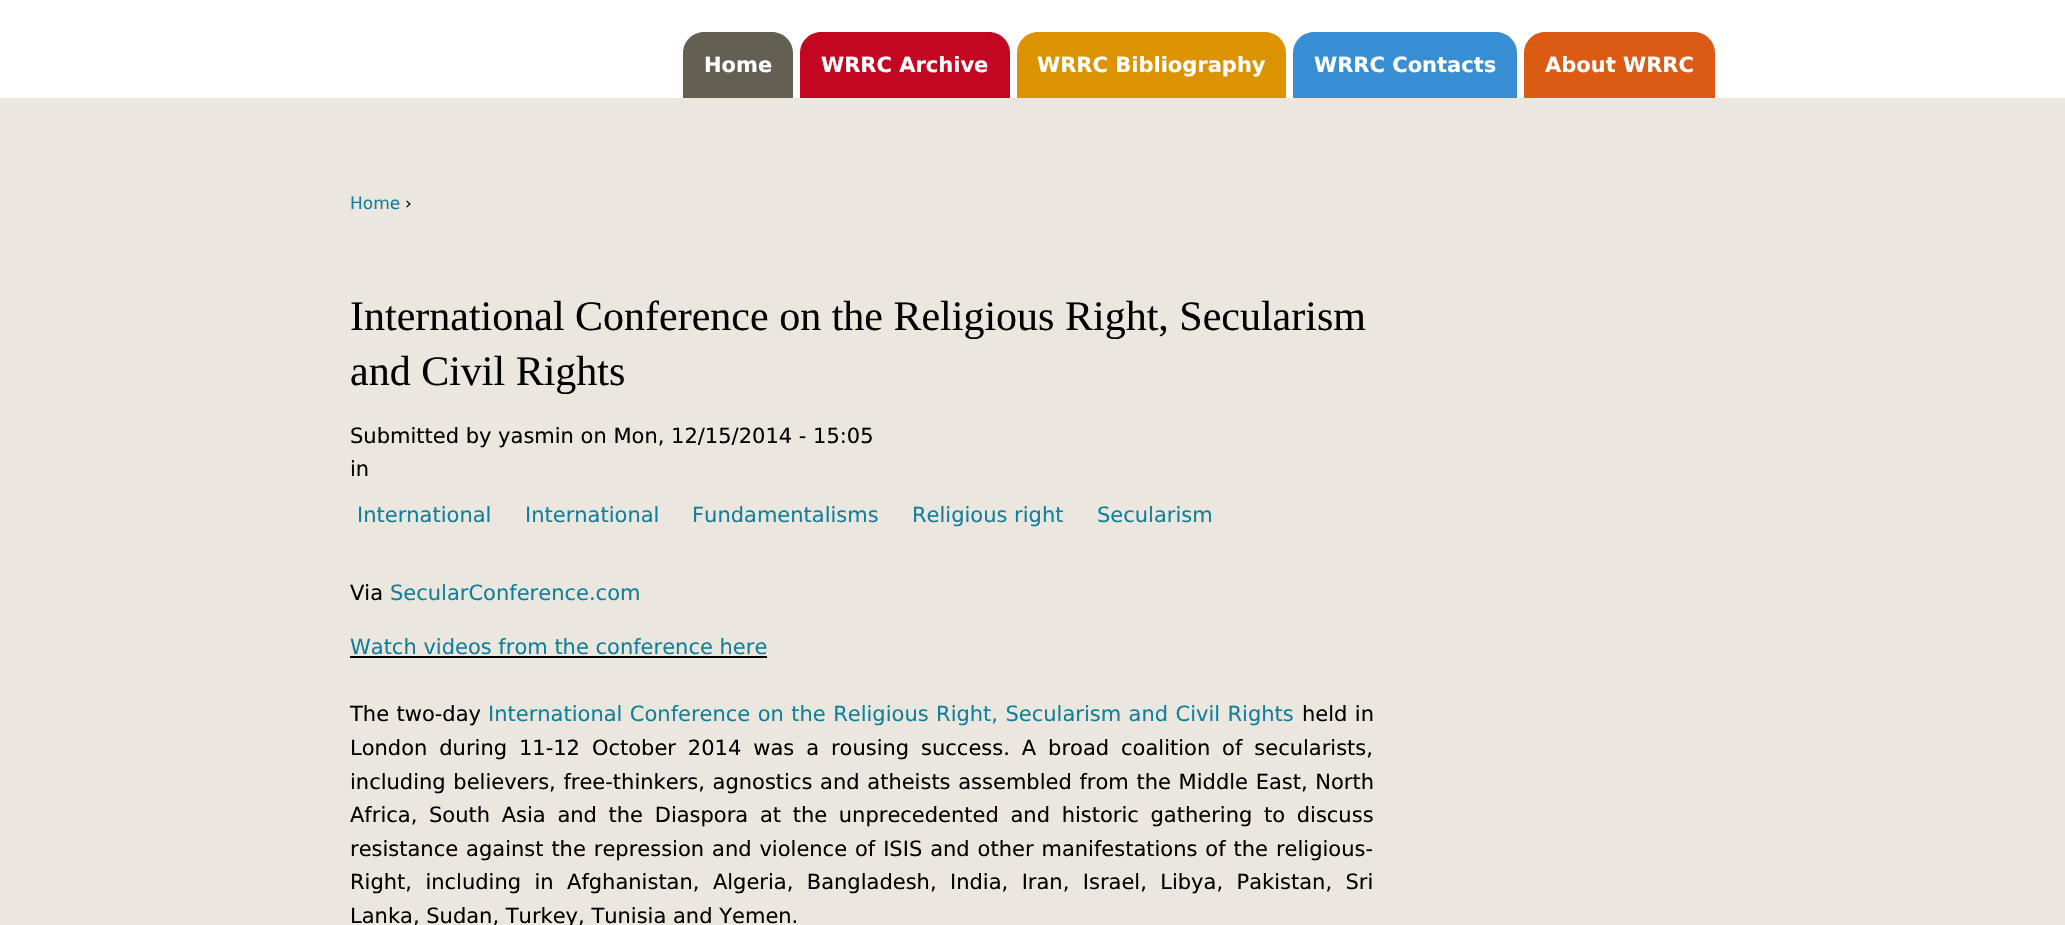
void draw(SkCanvas* c) {
SkPaint p;
p.setAntiAlias(true);
auto F=[&](const char* family, int weight, float size, bool italic = false){SkFontStyle style(weight, SkFontStyle::kNormal_Width,italic ? SkFontStyle::kItalic_Slant : SkFontStyle::kUpright_Slant);SkFont result(fontMgr->matchFamilyStyle(family, style), size);result.setSubpixel(true);return result;};
auto T=[&](const char* s, float x, float y, const SkFont& font){c->drawString(s, x, y, font, p);};
auto L=[&](const char* s, float x, float y, const SkFont& font, const SkPaint& ink, float letter, float word){std::vector<SkGlyphID> glyphs(font.countText(s, strlen(s), SkTextEncoding::kUTF8));std::vector<float> xs(glyphs.size());font.textToGlyphs(s, strlen(s), SkTextEncoding::kUTF8, glyphs);font.getXPos(glyphs, xs, x);float extra = 0;for (size_t i = 0; i < glyphs.size(); i++) {xs[i] += extra;extra += letter + word * (glyphs[i] == font.unicharToGlyph(' '));}c->drawTextBlob(SkTextBlob::MakeFromPosHGlyphs(glyphs, xs, y, font), 0, 0, ink);};
auto R=[&](float x, float y, float w, float h){c->drawRect(SkRect::MakeXYWH(x, y, w, h), p);};
auto P=[&](const char* data, bool evenOdd = false){SkPath result = *SkParsePath::FromSVGString(data);if (evenOdd) result.setFillType(SkPathFillType::kEvenOdd);return result;};
c->clear(0xffffffff);
p.setColor(0xff645f53);
c->drawPath(P("M704 32h68c11.5 0 21 9.5 21 21v45h-110v-45c0-11.5 9.5-21 21-21z"),p);
auto f1 = F("DejaVu Sans",700,21);
p.setColor(0xffffffff);
T("Home",704,72,f1);
p.setColor(0xffc30621);
c->drawPath(P("M821 32h168c11.5 0 21 9.5 21 21v45h-210v-45c0-11.5 9.5-21 21-21z"),p);
p.setColor(0xffffffff);
T("WRRC Archive",821,72,f1);
p.setColor(0xffdc9301);
c->drawPath(P("M1038 32h227c11.5 0 21 9.5 21 21v45h-269v-45c0-11.5 9.5-21 21-21z"),p);
p.setColor(0xffffffff);
T("WRRC Bibliography",1037,72,f1);
p.setColor(0xff388ed2);
c->drawPath(P("M1314 32h182c11.5 0 21 9.5 21 21v45h-224v-45c0-11.5 9.5-21 21-21z"),p);
p.setColor(0xffffffff);
T("WRRC Contacts",1314,72,f1);
p.setColor(0xffdb5a14);
c->drawPath(P("M1545 32h149c11.5 0 21 9.5 21 21v45h-191v-45c0-11.5 9.5-21 21-21z"),p);
p.setColor(0xffffffff);
T("About WRRC",1545,72,f1);
p.setColor(0xffebe7de);
R(0,98,2065,827);
auto f2 = F("DejaVu Sans",400,17);
p.setColor(0xff107f9b);
T("Home",350,209,f2);
p.setColor(0xff000000);
T("›",405,209,f2);
auto f3 = F("Liberation Serif",400,42);
T("International Conference on the Religious Right, Secularism",350,330,f3);
T("and Civil Rights",350,385,f3);
auto f4 = F("DejaVu Sans",400,21);
T("Submitted by yasmin on Mon, 12/15/2014 - 15:05",350,443,f4);
T("in",350,476,f4);
p.setColor(0xff107f9b);
T("International",357,522,f4);
T("International",525,522,f4);
T("Fundamentalisms",692,522,f4);
T("Religious right",912,522,f4);
T("Secularism",1097,522,f4);
p.setColor(0xff000000);
T("Via",350,600,f4);
p.setColor(0xff107f9b);
T("SecularConference.com",390,600,f4);
T("Watch videos from the conference here",350,654,f4);
p.setColor(0xff000000);
R(350,656,417,2);
L("The two-day",350,721,f4,p,0,.75);
p.setColor(0xff107f9b);
L("International Conference on the Religious Right, Secularism and Civil Rights",488,721,f4,p,0,.75);
p.setColor(0xff000000);
L("held in",1302,721,f4,p,0,.75);
L("London during 11-12 October 2014 was a rousing success. A broad coalition of secularists,",350,755,f4,p,0,5.25);
L("including believers, free-thinkers, agnostics and atheists assembled from the Middle East, North",350,789,f4,p,0,1);
L("Africa, South Asia and the Diaspora at the unprecedented and historic gathering to discuss",350,822,f4,p,0,5);
L("resistance against the repression and violence of ISIS and other manifestations of the religious-",350,856,f4,p,0,1.25);
L("Right, including in Afghanistan, Algeria, Bangladesh, India, Iran, Israel, Libya, Pakistan, Sri",350,889,f4,p,0,6.75);
T("Lanka, Sudan, Turkey, Tunisia and Yemen.",350,923,f4);
}
